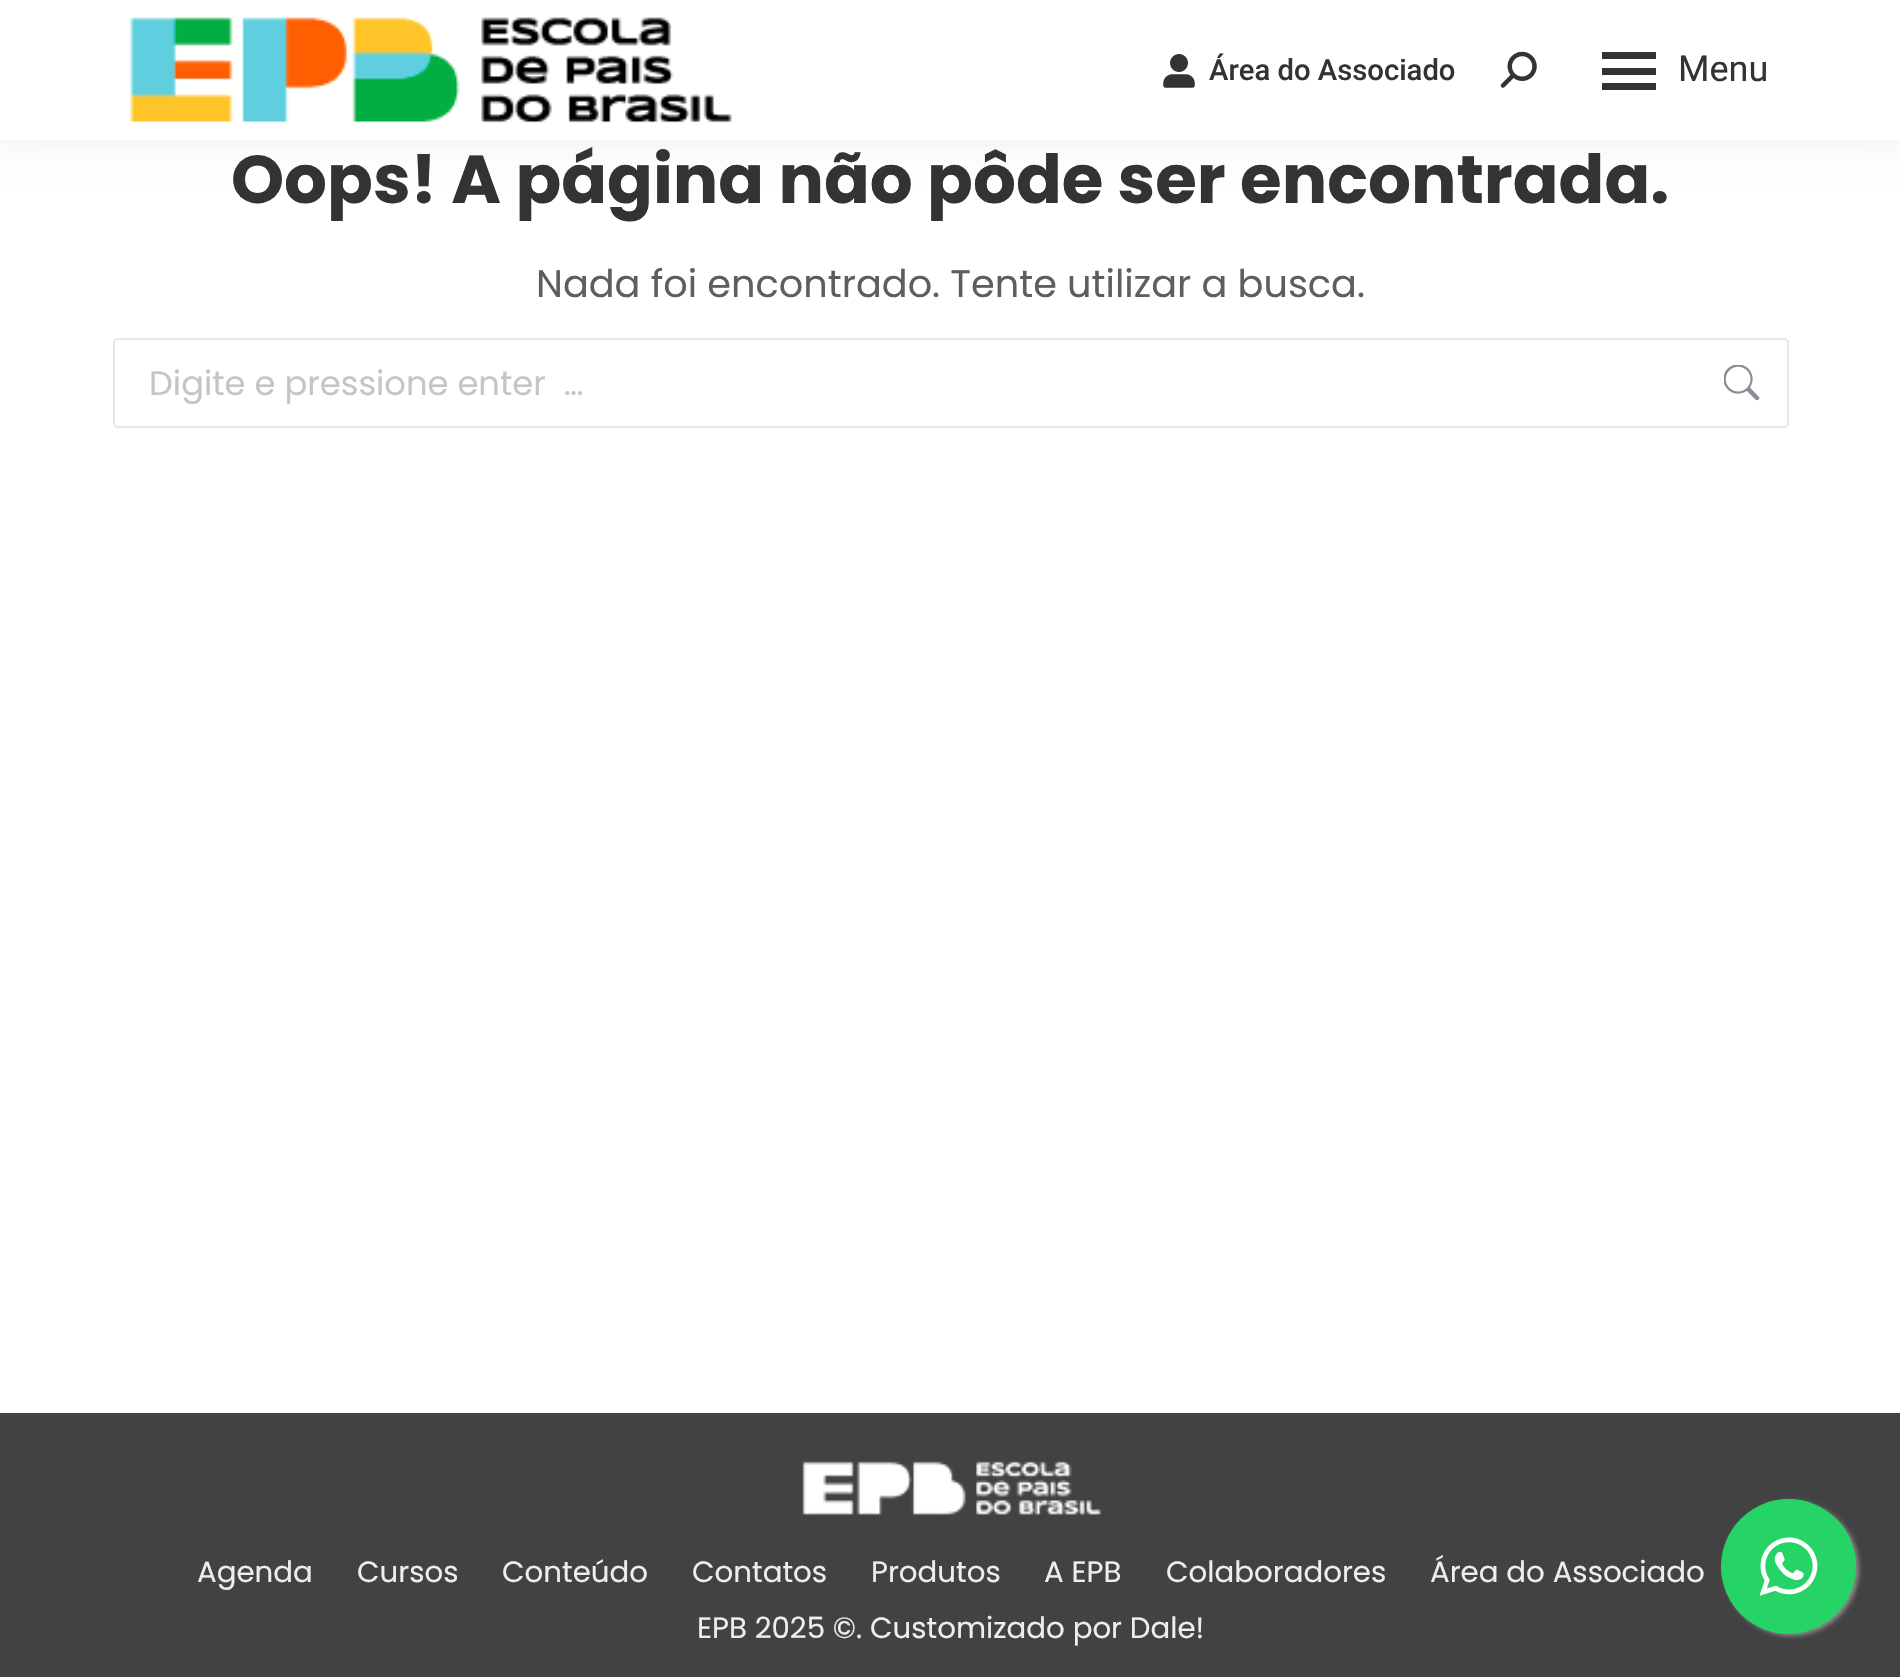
void draw(SkCanvas* c) {
SkPaint p;
p.setAntiAlias(true);
auto F=[&](const char* family, int weight, float size, bool italic = false){SkFontStyle style(weight, SkFontStyle::kNormal_Width,italic ? SkFontStyle::kItalic_Slant : SkFontStyle::kUpright_Slant);SkFont result(fontMgr->matchFamilyStyle(family, style), size);result.setSubpixel(true);return result;};
auto T=[&](const char* s, float x, float y, const SkFont& font){c->drawString(s, x, y, font, p);};
auto R=[&](float x, float y, float w, float h){c->drawRect(SkRect::MakeXYWH(x, y, w, h), p);};
auto I=[&](const char* path, float x, float y, float w, float h){auto image = SkImages::DeferredFromEncodedData(SkData::MakeFromFileName(path));c->drawImageRect(image, SkRect::MakeXYWH(x, y, w, h), SkSamplingOptions());};
c->clear(0xffffffff);
p.setColor(0x12000000);
p.setMaskFilter(SkMaskFilter::MakeBlur(kNormal_SkBlurStyle, 17));
c->drawRect(SkRect::MakeXYWH(-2,-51,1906,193),p);
p.setMaskFilter(nullptr);
p.setColor(0xffffffff);
R(0,0,1900,140);
I("1.png",130,17,602,106);
I("2.png",1163,54,32,34);
auto f1 = F("Roboto",500,29.25);
p.setColor(0xff333333);
T("Área do Associado",1209,80,f1);
I("3.png",1500,51,37,37);
R(1602,52,54,7);
R(1602,68,54,7);
R(1602,83,54,7);
auto f2 = F("Roboto",400,36);
T("Menu",1678,81,f2);
auto f3 = F("Poppins",700,67.5);
T("Oops! A página não pôde ser encontrada.",231,203,f3);
auto f4 = F("Poppins",400,38.25);
p.setColor(0xff5e5e5e);
T("Nada foi encontrado. Tente utilizar a busca.",536,297,f4);
p.setStroke(true);
p.setStrokeWidth(2);
p.setColor(0xffe7e7e7);
c->drawRoundRect(SkRect::MakeXYWH(114,339,1674,88),4,4,p);
auto f5 = F("Poppins",400,33.75);
p.setStroke(false);
p.setColor(0xffc4c5c9);
T("Digite e pressione enter  …",149,395,f5);
I("4.png",1724,365,36,36);
p.setColor(0xff424242);
R(0,1413,1900,264);
I("5.png",802,1461,299,54);
auto f6 = F("Poppins",400,29.25);
p.setColor(0xffeeeeee);
T("Agenda",197,1582,f6);
T("Cursos",357,1582,f6);
T("Conteúdo",502,1582,f6);
T("Contatos",692,1582,f6);
T("Produtos",871,1582,f6);
T("A EPB",1044,1582,f6);
T("Colaboradores",1166,1582,f6);
T("Área do Associado",1430,1582,f6);
T("EPB 2025 ©. Customizado por Dale!",697,1638,f6);
p.setColor(0xff888888);
p.setMaskFilter(SkMaskFilter::MakeBlur(kNormal_SkBlurStyle, 2));
c->drawRoundRect(SkRect::MakeXYWH(1724,1501,135,135),67.5,67.5,p);
p.setMaskFilter(nullptr);
p.setColor(0xff25d366);
c->drawCircle(1788.5,1566.5,67.5,p);
I("6.png",1759,1537,59,59);
}
